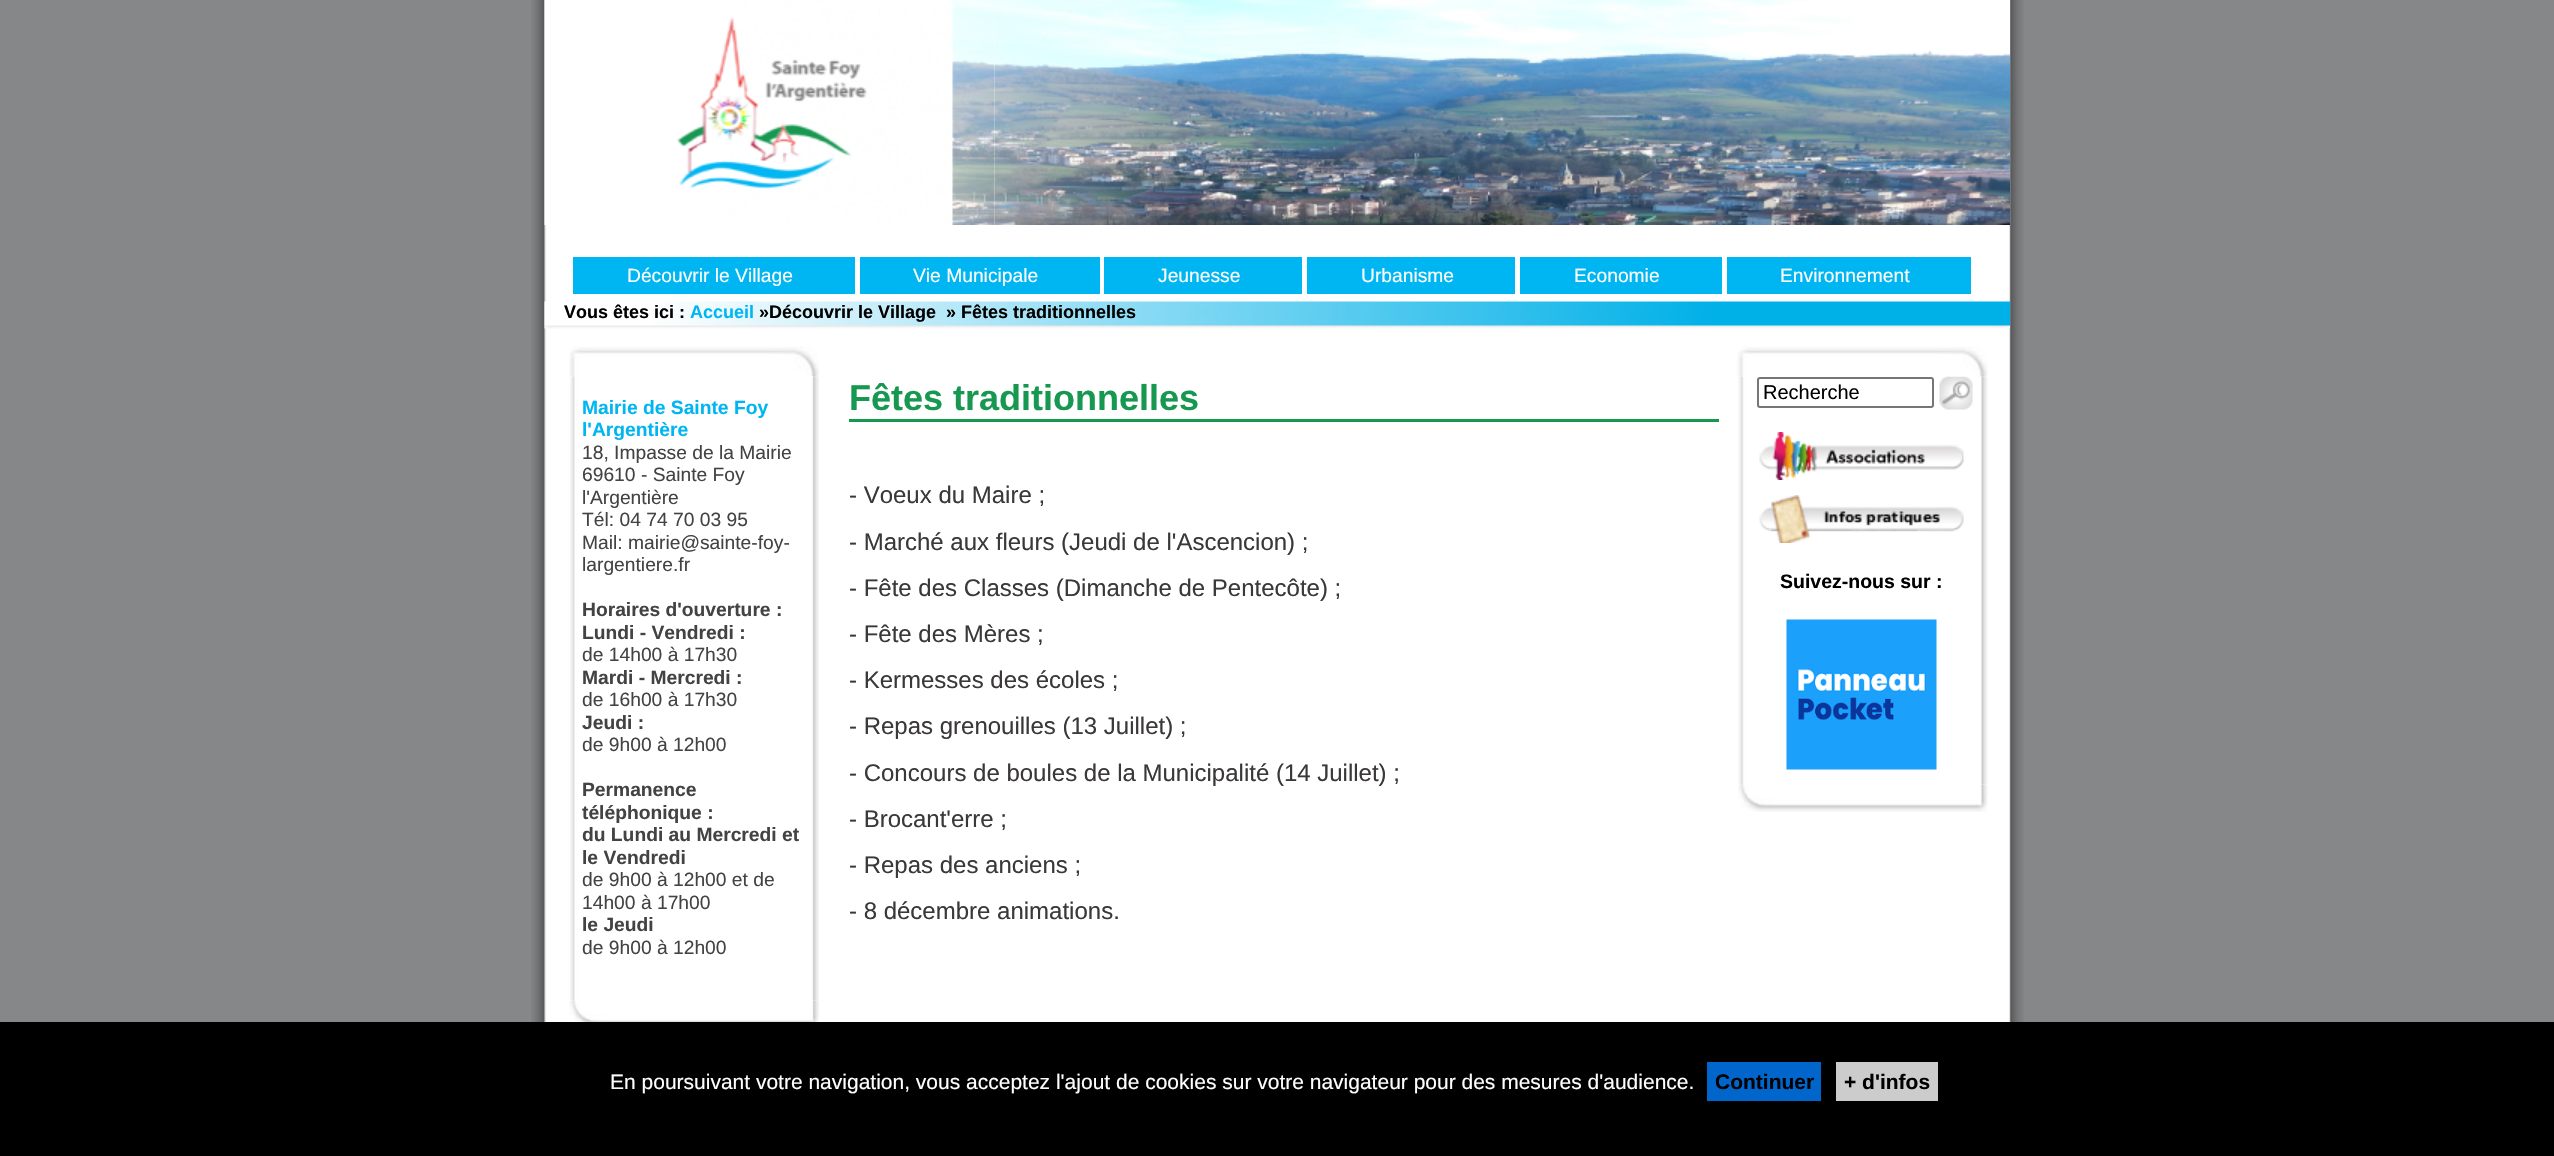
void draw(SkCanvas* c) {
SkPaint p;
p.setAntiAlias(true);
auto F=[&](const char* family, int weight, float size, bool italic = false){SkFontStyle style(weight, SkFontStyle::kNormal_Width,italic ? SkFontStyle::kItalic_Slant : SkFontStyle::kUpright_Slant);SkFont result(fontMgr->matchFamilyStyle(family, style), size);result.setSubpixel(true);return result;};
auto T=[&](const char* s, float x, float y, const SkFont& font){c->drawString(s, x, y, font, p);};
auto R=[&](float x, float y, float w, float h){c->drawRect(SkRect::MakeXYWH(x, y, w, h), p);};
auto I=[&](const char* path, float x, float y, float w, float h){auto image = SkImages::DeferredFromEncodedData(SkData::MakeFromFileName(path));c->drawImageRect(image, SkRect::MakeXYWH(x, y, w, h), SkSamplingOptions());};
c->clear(0xff868789);
I("1.png",531,0,1493,1022);
I("2.png",544,0,451,225);
I("3.png",994,0,1016,225);
p.setColor(0xff00b6f2);
R(573,257,282,37);
auto f1 = F("Liberation Sans",400,19.25);
p.setColor(0xffffffff);
T("Découvrir le Village",627,282,f1);
p.setColor(0xff00b6f2);
R(860,257,240,37);
p.setColor(0xffffffff);
T("Vie Municipale",913,282,f1);
p.setColor(0xff00b6f2);
R(1104,257,198,37);
p.setColor(0xffffffff);
T("Jeunesse",1158,282,f1);
p.setColor(0xff00b6f2);
R(1307,257,208,37);
p.setColor(0xffffffff);
T("Urbanisme",1361,282,f1);
p.setColor(0xff00b6f2);
R(1520,257,202,37);
p.setColor(0xffffffff);
T("Economie",1574,282,f1);
p.setColor(0xff00b6f2);
R(1727,257,244,37);
p.setColor(0xffffffff);
T("Environnement",1780,282,f1);
I("4.png",544,301,1466,28);
auto f2 = F("Liberation Sans",700,18);
p.setColor(0xff000000);
T("Vous êtes ici :",564,318,f2);
p.setColor(0xff00b6f2);
T("Accueil",690,318,f2);
p.setColor(0xff000000);
T("»Découvrir le Village",759,318,f2);
T("» Fêtes traditionnelles",946,318,f2);
I("5.png",569,346,250,31);
I("6.png",570,376,249,625);
auto f3 = F("Liberation Sans",700,19.25);
p.setColor(0xff00b6f2);
T("Mairie de Sainte Foy",582,414,f3);
T("l'Argentière",582,436,f3);
p.setColor(0xff434343);
T("18, Impasse de la Mairie",582,459,f1);
T("69610 - Sainte Foy",582,481,f1);
T("l'Argentière",582,504,f1);
T("Tél: 04 74 70 03 95",582,526,f1);
T("Mail: mairie@sainte-foy-",582,549,f1);
T("largentiere.fr",582,571,f1);
T("Horaires d'ouverture :",582,616,f3);
T("Lundi - Vendredi :",582,639,f3);
T("de 14h00 à 17h30",582,661,f1);
T("Mardi - Mercredi :",582,684,f3);
T("de 16h00 à 17h30",582,706,f1);
T("Jeudi :",582,729,f3);
T("de 9h00 à 12h00",582,751,f1);
T("Permanence",582,796,f3);
T("téléphonique :",582,819,f3);
T("du Lundi au Mercredi et",582,841,f3);
T("le Vendredi",582,864,f3);
T("de 9h00 à 12h00 et de",582,886,f1);
T("14h00 à 17h00",582,909,f1);
T("le Jeudi",582,931,f3);
T("de 9h00 à 12h00",582,954,f1);
I("7.png",569,1000,250,22);
p.setColor(0xff169850);
R(849,419,870,3);
auto f4 = F("Liberation Sans",700,36);
T("Fêtes traditionnelles",849,410,f4);
auto f5 = F("Liberation Sans",400,24);
p.setColor(0xff3b3838);
T("- Voeux du Maire ;",849,503,f5);
T("- Marché aux fleurs (Jeudi de l'Ascencion) ;",849,550,f5);
T("- Fête des Classes (Dimanche de Pentecôte) ;",849,596,f5);
T("- Fête des Mères ;",849,642,f5);
T("- Kermesses des écoles ;",849,688,f5);
T("- Repas grenouilles (13 Juillet) ;",849,734,f5);
T("- Concours de boules de la Municipalité (14 Juillet) ;",849,781,f5);
T("- Brocant'erre ;",849,827,f5);
T("- Repas des anciens ;",849,873,f5);
T("- 8 décembre animations.",849,919,f5);
I("9.png",1738,376,250,409);
I("10.png",1939,376,34,34);
I("8.png",1737,346,251,31);
p.setStroke(true);
p.setStrokeWidth(2);
p.setColor(0xff767676);
c->drawRoundRect(SkRect::MakeXYWH(1758,378,175,29),2,2,p);
auto f6 = F("Liberation Sans",400,20);
p.setStroke(false);
p.setColor(0xff000000);
T("Recherche",1763,399,f6);
I("11.png",1759,432,205,48);
I("12.png",1759,495,205,48);
auto f7 = F("Liberation Sans",700,19.5);
T("Suivez-nous sur :",1780,588,f7);
I("13.png",1786,619,151,151);
I("14.png",1738,784,250,28);
R(0,1022,2554,134);
auto f8 = F("Liberation Sans",400,21);
p.setColor(0xffffffff);
T("En poursuivant votre navigation, vous acceptez l'ajout de cookies sur votre navigateur pour des mesures d'audience.",610,1089,f8);
p.setColor(0xff0066cc);
R(1707,1062,114,39);
auto f9 = F("Liberation Sans",700,21);
p.setColor(0xff000000);
T("Continuer",1715,1089,f9);
p.setColor(0xffcccccc);
R(1836,1062,102,39);
p.setColor(0xff000000);
T("+ d'infos",1844,1089,f9);
}
